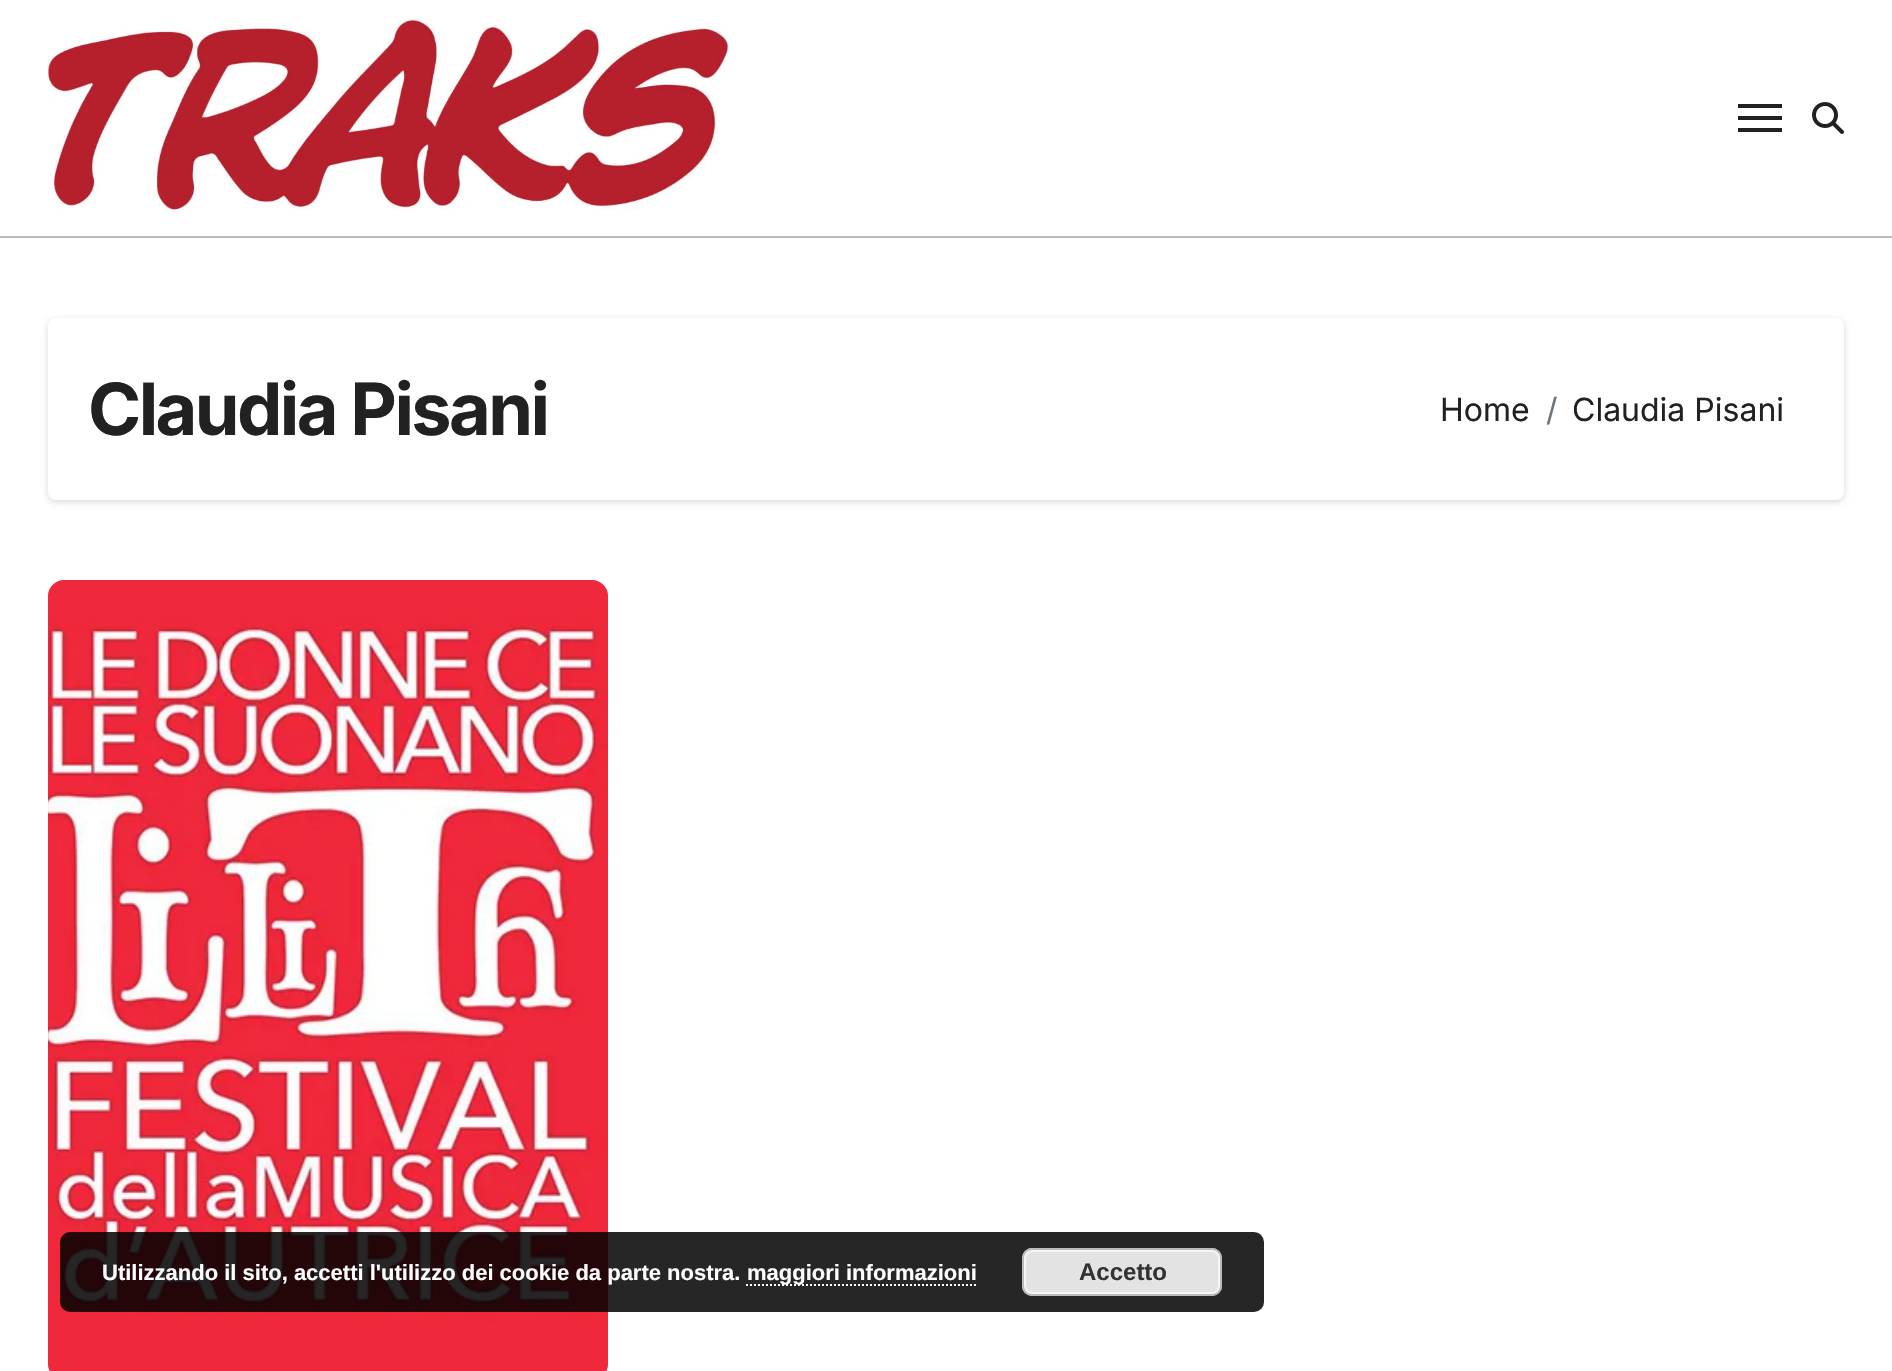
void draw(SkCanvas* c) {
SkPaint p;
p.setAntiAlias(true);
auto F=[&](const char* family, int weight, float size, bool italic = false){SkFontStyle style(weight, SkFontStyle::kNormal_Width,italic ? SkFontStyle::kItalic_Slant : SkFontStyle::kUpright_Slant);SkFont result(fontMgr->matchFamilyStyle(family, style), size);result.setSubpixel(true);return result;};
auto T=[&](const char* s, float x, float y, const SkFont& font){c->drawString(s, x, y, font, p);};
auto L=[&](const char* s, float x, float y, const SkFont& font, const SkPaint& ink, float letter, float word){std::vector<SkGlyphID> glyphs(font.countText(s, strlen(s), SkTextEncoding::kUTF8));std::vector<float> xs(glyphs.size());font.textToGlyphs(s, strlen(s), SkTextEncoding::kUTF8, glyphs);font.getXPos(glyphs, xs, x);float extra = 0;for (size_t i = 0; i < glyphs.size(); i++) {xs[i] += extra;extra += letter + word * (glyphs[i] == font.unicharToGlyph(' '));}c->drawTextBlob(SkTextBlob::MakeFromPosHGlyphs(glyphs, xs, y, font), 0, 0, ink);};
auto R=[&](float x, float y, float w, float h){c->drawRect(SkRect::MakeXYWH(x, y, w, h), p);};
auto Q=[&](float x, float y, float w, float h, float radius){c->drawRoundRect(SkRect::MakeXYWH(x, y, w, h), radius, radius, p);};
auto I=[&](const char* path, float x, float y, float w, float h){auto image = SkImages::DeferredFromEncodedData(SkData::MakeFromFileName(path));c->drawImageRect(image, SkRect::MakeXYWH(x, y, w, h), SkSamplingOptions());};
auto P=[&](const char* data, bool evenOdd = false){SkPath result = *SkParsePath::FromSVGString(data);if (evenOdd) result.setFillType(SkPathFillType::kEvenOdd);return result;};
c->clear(0xffffffff);
p.setColor(0xffbbbbbb);
R(0,236,1892,2);
I("1.png",48,20,680,191);
p.setColor(0xff212121);
R(1738,104,44,4);
R(1738,116,44,4);
R(1738,128,44,4);
I("2.png",1812,102,32,32);
c->save();
c->clipPath(P("M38 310h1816v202h-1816zm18 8h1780c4.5 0 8 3.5 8 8v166c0 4.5-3.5 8-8 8h-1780c-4.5 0-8-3.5-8-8v-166c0-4.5 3.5-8 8-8z",true),true);
p.setColor(0x26000000);
p.setMaskFilter(SkMaskFilter::MakeBlur(kNormal_SkBlurStyle, 3));
c->drawRoundRect(SkRect::MakeXYWH(48,320,1796,182),8,8,p);
p.setMaskFilter(nullptr);
c->restore();
auto f1 = F("Inter",700,72);
p.setColor(0xff212121);
L("Claudia Pisani",88,435,f1,p,-2.6,0);
auto f2 = F("Inter",400,32);
T("Home",1440,421,f2);
p.setColor(0xff6c757d);
T("/",1546,421,f2);
p.setColor(0xff212121);
T("Claudia Pisani",1572,421,f2);
I("3.png",48,580,560,791);
p.setColor(0xd9000000);
Q(60,1232,1204,80,10);
auto f3 = F("Liberation Sans",700,22);
p.setColor(0xffffffff);
T("Utilizzando il sito, accetti l'utilizzo dei cookie da parte nostra.",102,1280,f3);
p.setStroke(true);
p.setStrokeWidth(2);
p.setPathEffect(SkDashPathEffect::Make({{2,2}}, 0));
c->drawPath(P("M746 1285h230"),p);
p.setPathEffect(nullptr);
p.setStroke(false);
T("maggiori informazioni",747,1280,f3);
p.setColor(0xffe3e3e3);
Q(1022,1248,200,48,10);
p.setStroke(true);
p.setColor(0xfff6f6f6);
c->drawRoundRect(SkRect::MakeXYWH(1025,1251,194,42),7,7,p);
p.setColor(0xffbbbbbb);
c->drawRoundRect(SkRect::MakeXYWH(1023,1249,198,46),9,9,p);
auto f4 = F("Liberation Sans",700,24);
p.setStroke(false);
p.setColor(0xff333333);
T("Accetto",1079,1280,f4);
}
